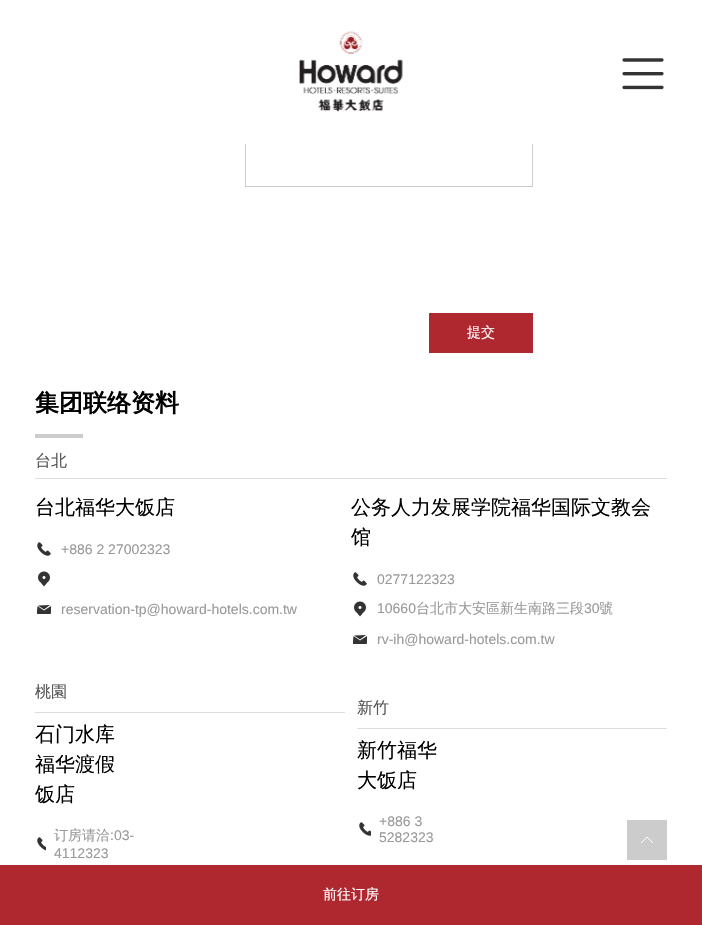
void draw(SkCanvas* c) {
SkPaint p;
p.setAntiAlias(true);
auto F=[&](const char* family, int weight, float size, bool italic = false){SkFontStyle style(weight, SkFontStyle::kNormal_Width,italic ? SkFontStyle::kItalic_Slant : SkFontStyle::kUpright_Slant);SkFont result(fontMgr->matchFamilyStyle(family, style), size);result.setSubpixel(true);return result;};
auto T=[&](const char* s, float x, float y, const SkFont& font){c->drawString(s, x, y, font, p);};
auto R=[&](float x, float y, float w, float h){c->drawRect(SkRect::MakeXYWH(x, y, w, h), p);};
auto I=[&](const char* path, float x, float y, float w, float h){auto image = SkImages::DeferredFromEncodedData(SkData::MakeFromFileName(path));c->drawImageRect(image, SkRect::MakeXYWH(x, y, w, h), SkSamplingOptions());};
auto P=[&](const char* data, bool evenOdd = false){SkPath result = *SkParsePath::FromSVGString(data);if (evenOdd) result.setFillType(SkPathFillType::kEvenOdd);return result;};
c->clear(0xffffffff);
p.setStroke(true);
p.setStrokeWidth(1);
p.setColor(0xffcccccc);
c->drawRect(SkRect::MakeXYWH(245.5,67.5,287,119),p);
p.setStroke(false);
p.setColor(0xffffffff);
R(245,67,288,77);
I("1.png",299,31,104,81);
I("2.png",622,58,42,32);
p.setColor(0xffaf272f);
R(429,313,104,40);
auto f1 = F("WenQuanYi Zen Hei",500,14);
p.setColor(0xffffffff);
T("提交",467,337,f1);
auto f2 = F("WenQuanYi Zen Hei",700,24);
p.setColor(0xff000000);
T("集团联络资料",35,411,f2);
p.setColor(0xffcccccc);
R(35,434,48,4);
p.setColor(0xffdddddd);
R(35,478,632,1);
auto f3 = F("WenQuanYi Zen Hei",500,16);
p.setColor(0xff555555);
T("台北",35,466,f3);
auto f4 = F("WenQuanYi Zen Hei",500,20);
p.setColor(0xff000000);
T("台北福华大饭店",35,514,f4);
I("3.png",37,542,14,14);
auto f5 = F("Liberation Sans",400,14);
p.setColor(0xff999999);
T("+886 2 27002323",61,554,f5);
I("4.png",38,571,12,16);
p.setColor(0xff333333);
c->drawPath(P("M51 606v6c0 2.5-.5 2-3 2h-8c-3.5 0-3 .5-3-3l.5-5l6.5 4.5zm-1-1l-6 4.5l-6-4z",true),p);
p.setColor(0xff999999);
T("reservation-tp@howard-hotels.com.tw",61,614,f5);
p.setColor(0xff000000);
T("公务人力发展学院福华国际文教会",351,514,f4);
T("馆",351,544,f4);
I("3.png",353,572,14,14);
p.setColor(0xff999999);
T("0277122323",377,584,f5);
I("4.png",354,601,12,16);
T("10660",377,613,f5);
T("台北市大安區新生南路三段",416,613,f1);
T("30",584,613,f5);
T("號",599,613,f1);
p.setColor(0xff333333);
c->drawPath(P("M367 636v6c0 2.5-.5 2-3 2h-8c-3.5 0-3 .5-3-3l.5-5l6.5 4.5zm-1-1l-6 4.5l-6-4z",true),p);
p.setColor(0xff999999);
T("rv-ih@howard-hotels.com.tw",377,644,f5);
p.setColor(0xffdddddd);
R(35,712,310,1);
p.setColor(0xff555555);
T("桃園",35,697,f3);
p.setColor(0xff000000);
T("石门水库",35,741,f4);
T("福华渡假",35,771,f4);
T("饭店",35,801,f4);
I("5.png",37,837,9,14);
p.setColor(0xff999999);
T("订房请洽",54,840,f1);
T(":03-",110,840,f5);
T("4112323",54,858,f5);
p.setColor(0xffdddddd);
R(357,728,310,1);
p.setColor(0xff555555);
T("新竹",357,713,f3);
p.setColor(0xff000000);
T("新竹福华",357,757,f4);
T("大饭店",357,787,f4);
I("6.png",359,822,12,14);
p.setColor(0xff999999);
T("+886 3",379,826,f5);
T("5282323",379,842,f5);
p.setColor(0xffcccccc);
R(627,820,40,40);
p.setStroke(true);
p.setStrokeJoin(SkPaint::kRound_Join);
p.setColor(0xffffffff);
c->drawPath(P("M641 843l6-6l6 6"),p);
p.setStroke(false);
p.setColor(0xffaf272f);
R(0,865,702,60);
p.setColor(0xffffffff);
T("前往订房",323,899,f1);
}
